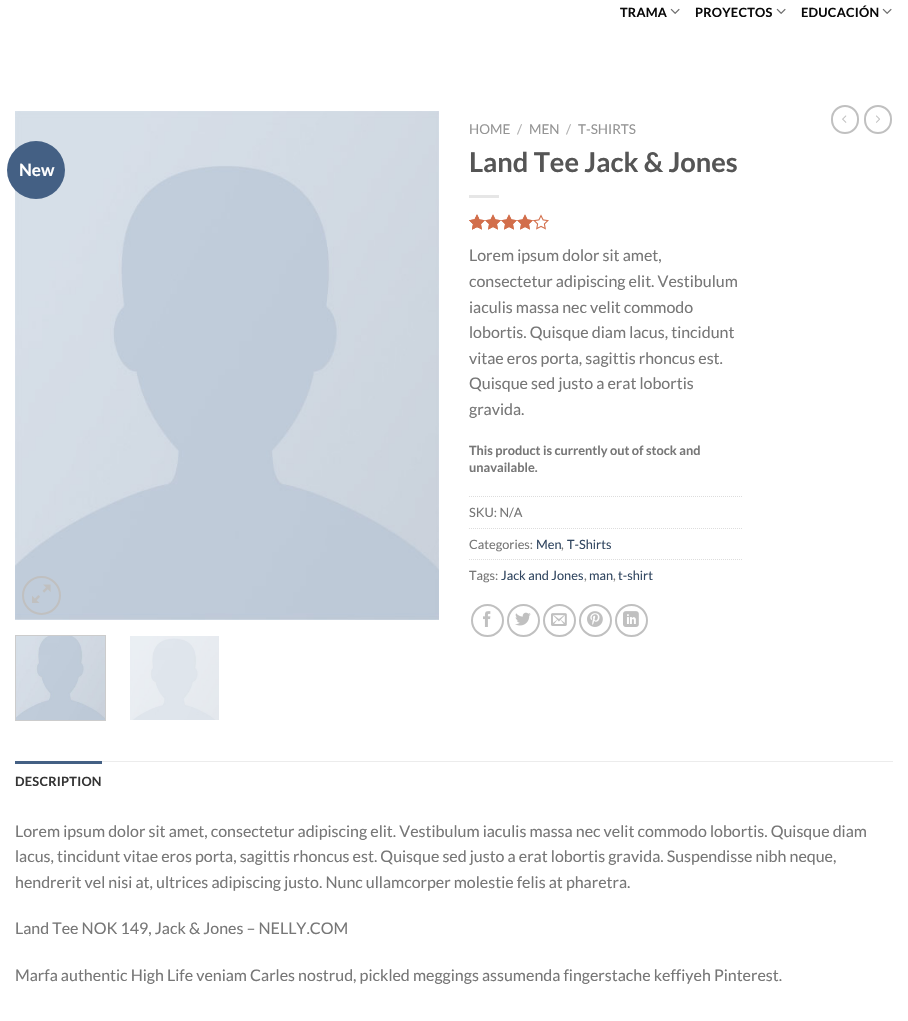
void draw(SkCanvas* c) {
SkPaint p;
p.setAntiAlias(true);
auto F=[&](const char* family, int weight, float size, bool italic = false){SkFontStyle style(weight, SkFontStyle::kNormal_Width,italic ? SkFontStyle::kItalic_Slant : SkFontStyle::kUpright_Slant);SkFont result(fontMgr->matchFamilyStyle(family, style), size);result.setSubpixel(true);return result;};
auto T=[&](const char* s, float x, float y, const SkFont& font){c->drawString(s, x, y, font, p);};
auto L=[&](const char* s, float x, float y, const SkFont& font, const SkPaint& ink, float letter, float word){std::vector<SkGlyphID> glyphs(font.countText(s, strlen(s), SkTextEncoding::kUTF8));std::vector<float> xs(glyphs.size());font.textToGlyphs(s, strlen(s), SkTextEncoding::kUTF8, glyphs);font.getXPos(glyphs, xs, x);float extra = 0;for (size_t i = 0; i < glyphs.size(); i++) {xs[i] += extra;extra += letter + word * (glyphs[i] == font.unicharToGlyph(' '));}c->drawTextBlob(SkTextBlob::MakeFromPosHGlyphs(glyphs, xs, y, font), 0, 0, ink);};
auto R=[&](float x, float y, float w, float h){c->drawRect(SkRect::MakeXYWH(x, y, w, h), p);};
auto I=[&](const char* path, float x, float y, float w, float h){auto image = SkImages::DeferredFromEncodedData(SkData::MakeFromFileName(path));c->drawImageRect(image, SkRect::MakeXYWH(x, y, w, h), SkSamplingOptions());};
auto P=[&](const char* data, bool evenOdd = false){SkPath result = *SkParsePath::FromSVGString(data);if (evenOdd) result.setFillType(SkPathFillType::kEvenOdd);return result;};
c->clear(0xffffffff);
auto f1 = F("Lato",700,12.75);
p.setColor(0xff0a0a0a);
L("TRAMA",620,17,f1,p,.25,0);
I("1.png",670,8,10,6);
L("PROYECTOS",695,17,f1,p,.25,0);
I("1.png",776,8,10,6);
L("EDUCACIÓN",801,17,f1,p,.25,0);
I("1.png",882,8,10,6);
p.setStroke(true);
p.setStrokeWidth(2);
p.setColor(0xffc0c0c0);
c->drawRoundRect(SkRect::MakeXYWH(832,106,26,27),13,13,p);
I("2.png",842,115,5,8);
c->drawRoundRect(SkRect::MakeXYWH(865,106,26,27),13,13,p);
I("3.png",876,115,4,8);
I("4.png",15,111,424,509);
p.setStroke(false);
p.setColor(0xff446084);
c->drawCircle(36,170,29,p);
auto f2 = F("Lato",700,17);
p.setColor(0xffffffff);
T("New",19,176,f2);
p.setStroke(true);
p.setColor(0xffc0c0c0);
c->drawCircle(41.5,595.5,18.5,p);
I("5.png",32,584,19,19);
p.setStrokeWidth(1);
p.setColor(0xffcccccc);
c->drawRect(SkRect::MakeXYWH(15.5,635.5,90,85),p);
I("6.png",16,636,89,84);
I("7.png",130,636,89,84);
auto f3 = F("Lato",400,13.5);
p.setStroke(false);
p.setColor(0xff949494);
T("HOME",469,134,f3);
p.setColor(0xffb2b2b2);
T("/",517,134,f3);
p.setColor(0xff949494);
T("MEN",529,134,f3);
p.setColor(0xffb2b2b2);
T("/",566,134,f3);
p.setColor(0xff949494);
T("T-SHIRTS",578,134,f3);
auto f4 = F("Lato",700,27.25);
p.setColor(0xff555555);
T("Land Tee Jack & Jones",469,172,f4);
p.setColor(0xffe6e6e6);
R(469,195,30,3);
I("8.png",469,214,80,16);
I("9.png",469,214,65,16);
I("10.png",469,214,10,16);
auto f5 = F("Lato",400,16);
p.setColor(0xff777777);
T("Lorem ipsum dolor sit amet,",469,261,f5);
T("consectetur adipiscing elit. Vestibulum",469,287,f5);
T("iaculis massa nec velit commodo",469,313,f5);
T("lobortis. Quisque diam lacus, tincidunt",469,338,f5);
T("vitae eros porta, sagittis rhoncus est.",469,364,f5);
T("Quisque sed justo a erat lobortis",469,389,f5);
T("gravida.",469,415,f5);
T("This product is currently out of stock and",469,455,f1);
T("unavailable.",469,472,f1);
p.setStroke(true);
p.setColor(0xffdddddd);
p.setPathEffect(SkDashPathEffect::Make({{1,1}}, 0));
c->drawPath(P("M469 496.5h273"),p);
p.setPathEffect(nullptr);
auto f6 = F("Lato",400,12.75);
p.setStroke(false);
p.setColor(0xff777777);
T("SKU: N/A",469,517,f6);
p.setStroke(true);
p.setColor(0xffdddddd);
p.setPathEffect(SkDashPathEffect::Make({{1,1}}, 0));
c->drawPath(P("M469 528.5h273"),p);
p.setPathEffect(nullptr);
p.setStroke(false);
p.setColor(0xff777777);
T("Categories:",469,549,f6);
p.setColor(0xff334862);
T("Men",536,549,f6);
p.setColor(0xff777777);
T(",",561,549,f6);
p.setColor(0xff334862);
T("T-Shirts",567,549,f6);
p.setStroke(true);
p.setColor(0xffdddddd);
p.setPathEffect(SkDashPathEffect::Make({{1,1}}, 0));
c->drawPath(P("M469 559.5h273"),p);
p.setPathEffect(nullptr);
p.setStroke(false);
p.setColor(0xff777777);
T("Tags:",469,580,f6);
p.setColor(0xff334862);
T("Jack and Jones",501,580,f6);
p.setColor(0xff777777);
T(",",584,580,f6);
p.setColor(0xff334862);
T("man",589,580,f6);
p.setColor(0xff777777);
T(",",613,580,f6);
p.setColor(0xff334862);
T("t-shirt",618,580,f6);
p.setStroke(true);
p.setStrokeWidth(2);
p.setColor(0xffc0c0c0);
c->drawCircle(487.5,620.5,15.5,p);
I("11.png",483,611,8,16);
c->drawCircle(523.5,620.5,15.5,p);
I("12.png",515,612,16,14);
c->drawCircle(559.5,620.5,15.5,p);
I("13.png",551,613,16,13);
c->drawCircle(595.5,620.5,15.5,p);
I("14.png",587,611,16,16);
c->drawCircle(631.5,620.5,15.5,p);
I("15.png",623,611,16,16);
p.setStroke(false);
p.setColor(0xffececec);
R(102,761,791,1);
p.setColor(0xff446084);
R(15,761,87,3);
p.setColor(0xff353535);
L("DESCRIPTION",15,786,f1,p,.25,0);
p.setColor(0xff777777);
T("Lorem ipsum dolor sit amet, consectetur adipiscing elit. Vestibulum iaculis massa nec velit commodo lobortis. Quisque diam",15,837,f5);
T("lacus, tincidunt vitae eros porta, sagittis rhoncus est. Quisque sed justo a erat lobortis gravida. Suspendisse nibh neque,",15,862,f5);
T("hendrerit vel nisi at, ultrices adipiscing justo. Nunc ullamcorper molestie felis at pharetra.",15,888,f5);
T("Land Tee NOK 149, Jack & Jones – NELLY.COM",15,934,f5);
T("Marfa authentic High Life veniam Carles nostrud, pickled meggings assumenda fingerstache keffiyeh Pinterest.",15,981,f5);
}
